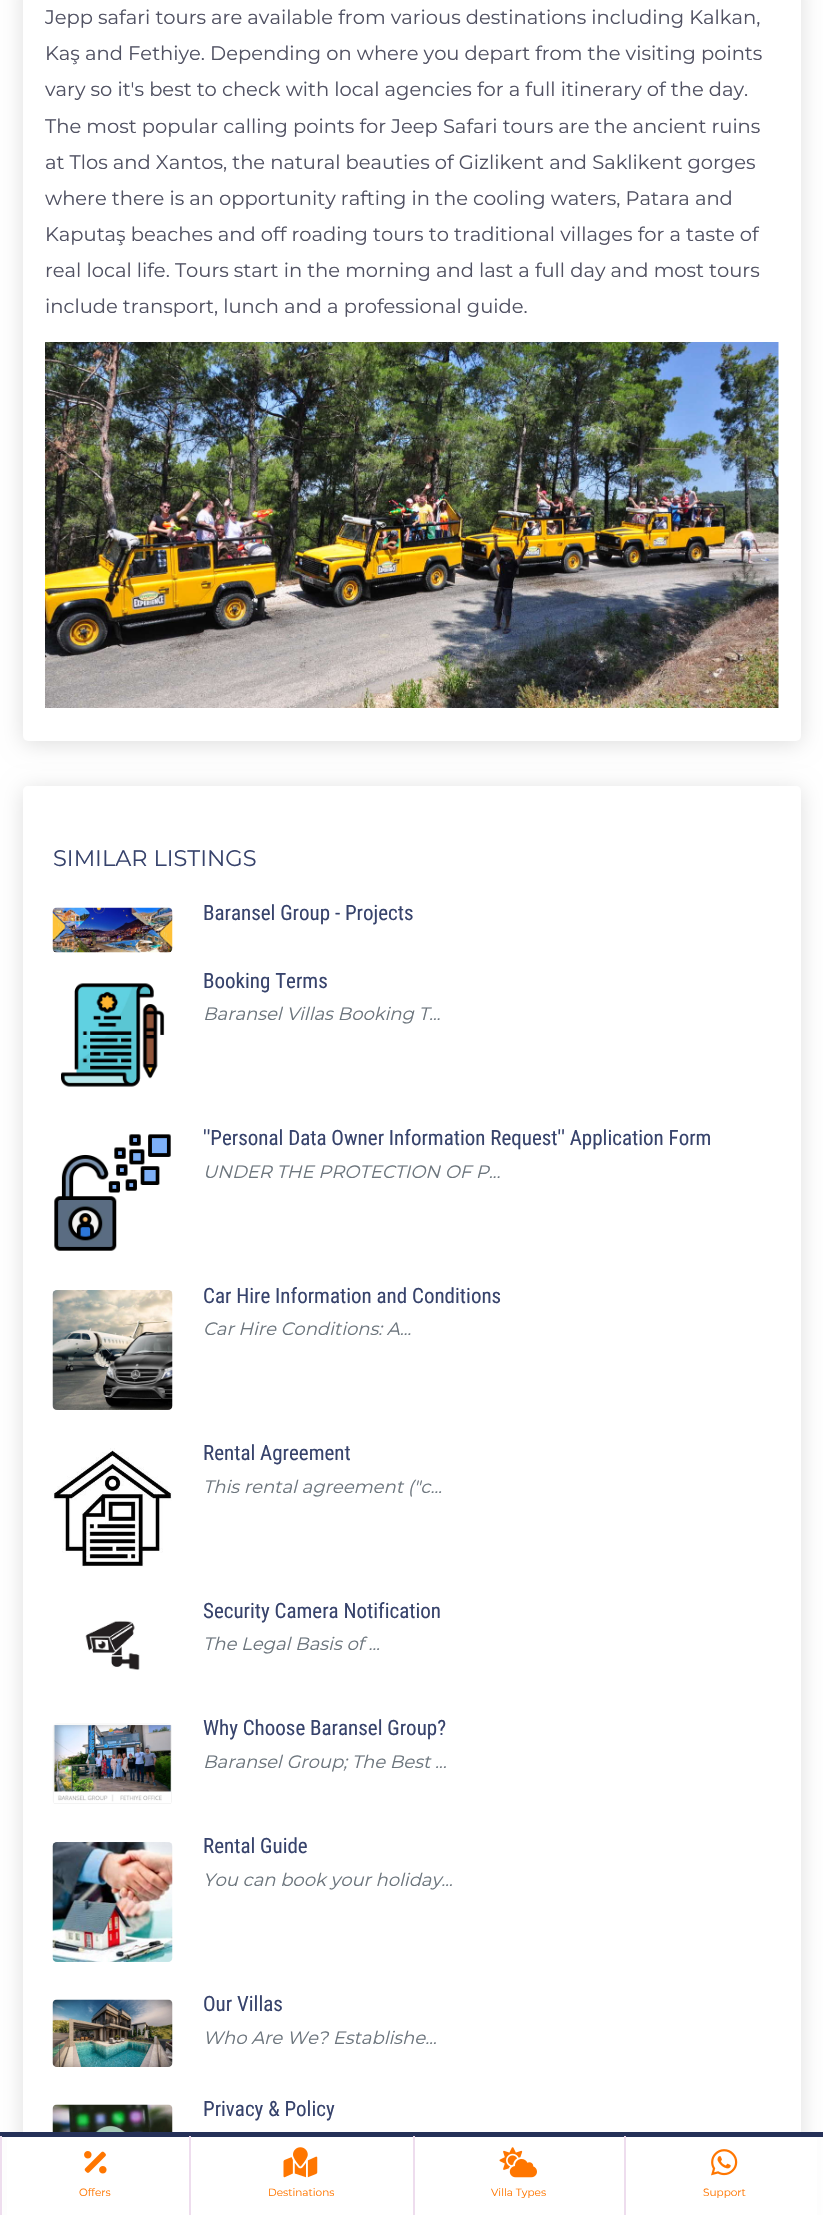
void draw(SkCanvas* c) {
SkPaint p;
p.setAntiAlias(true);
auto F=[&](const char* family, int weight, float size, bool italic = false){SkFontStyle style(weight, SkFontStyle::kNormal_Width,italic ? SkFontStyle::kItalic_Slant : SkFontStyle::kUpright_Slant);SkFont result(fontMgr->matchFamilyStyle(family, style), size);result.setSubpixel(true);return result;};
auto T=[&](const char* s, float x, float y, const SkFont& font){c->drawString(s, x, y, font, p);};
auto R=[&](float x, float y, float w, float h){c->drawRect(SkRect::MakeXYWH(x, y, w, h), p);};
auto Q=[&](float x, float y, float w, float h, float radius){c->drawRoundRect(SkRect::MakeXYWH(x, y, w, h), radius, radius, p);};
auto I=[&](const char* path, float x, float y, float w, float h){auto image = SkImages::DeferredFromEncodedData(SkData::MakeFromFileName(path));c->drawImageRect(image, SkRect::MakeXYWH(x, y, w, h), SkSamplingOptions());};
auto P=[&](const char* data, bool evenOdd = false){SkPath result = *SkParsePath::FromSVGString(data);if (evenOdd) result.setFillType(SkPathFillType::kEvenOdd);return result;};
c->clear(0xffffffff);
p.setColor(0x21000000);
p.setMaskFilter(SkMaskFilter::MakeBlur(kNormal_SkBlurStyle, 11));
c->drawRoundRect(SkRect::MakeXYWH(23,-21,778,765),5,5,p);
p.setMaskFilter(nullptr);
p.setColor(0xffffffff);
Q(23,-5,778,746,5);
auto f1 = F("Montserrat",400,19.5);
p.setColor(0xff515263);
T("Jepp safari tours are available from various destinations including Kalkan,",45,24,f1);
T("Kaş and Fethiye. Depending on where you depart from the visiting points",45,60,f1);
T("vary so it's best to check with local agencies for a full itinerary of the day.",45,96,f1);
T("The most popular calling points for Jeep Safari tours are the ancient ruins",45,133,f1);
T("at Tlos and Xantos, the natural beauties of Gizlikent and Saklikent gorges",45,169,f1);
T("where there is an opportunity rafting in the cooling waters, Patara and",45,205,f1);
T("Kaputaş beaches and off roading tours to traditional villages for a taste of",45,241,f1);
T("real local life. Tours start in the morning and last a full day and most tours",45,277,f1);
T("include transport, lunch and a professional guide.",45,313,f1);
I("1.png",45,342,734,366);
c->save();
c->clipPath(P("M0 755h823v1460h-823zm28 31h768c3 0 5 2 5 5v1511c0 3-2 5-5 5h-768c-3 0-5-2-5-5v-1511c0-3 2-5 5-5z",true),true);
p.setColor(0x21000000);
p.setMaskFilter(SkMaskFilter::MakeBlur(kNormal_SkBlurStyle, 11));
c->drawRoundRect(SkRect::MakeXYWH(23,789,778,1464),5,5,p);
p.setMaskFilter(nullptr);
c->restore();
auto f2 = F("Montserrat",400,22.5);
p.setColor(0xff37436c);
T("SIMILAR LISTINGS",53,866,f2);
I("2.png",52,907,121,46);
auto f3 = F("Roboto Condensed",400,21);
T("Baransel Group - Projects",203,920,f3);
I("3.png",61,983,104,104);
T("Booking Terms",203,988,f3);
auto f4 = F("Montserrat",400,18,true);
p.setColor(0xff6c757d);
T("Baransel Villas Booking T...",203,1020,f4);
I("4.png",54,1134,117,117);
p.setColor(0xff37436c);
T("''Personal Data Owner Information Request'' Application Form",203,1145,f3);
p.setColor(0xff6c757d);
T("UNDER THE PROTECTION OF P...",203,1178,f4);
I("5.png",52,1290,121,120);
p.setColor(0xff37436c);
T("Car Hire Information and Conditions",203,1303,f3);
p.setColor(0xff6c757d);
T("Car Hire Conditions: A...",203,1335,f4);
I("6.png",53,1448,119,119);
p.setColor(0xff37436c);
T("Rental Agreement",203,1460,f3);
p.setColor(0xff6c757d);
T("This rental agreement (\"c...",203,1493,f4);
I("7.png",85,1620,55,50);
p.setColor(0xff37436c);
T("Security Camera Notification",203,1618,f3);
p.setColor(0xff6c757d);
T("The Legal Basis of ...",203,1650,f4);
I("8.png",52,1723,120,81);
p.setColor(0xff37436c);
T("Why Choose Baransel Group?",203,1735,f3);
p.setColor(0xff6c757d);
T("Baransel Group; The Best ...",203,1768,f4);
I("9.png",52,1842,121,120);
p.setColor(0xff37436c);
T("Rental Guide",203,1853,f3);
p.setColor(0xff6c757d);
T("You can book your holiday...",203,1886,f4);
I("10.png",52,1999,121,68);
p.setColor(0xff37436c);
T("Our Villas",203,2011,f3);
p.setColor(0xff6c757d);
T("Who Are We? Establishe...",203,2044,f4);
I("11.png",52,2104,121,28);
p.setColor(0xff37436c);
T("Privacy & Policy",203,2116,f3);
p.setColor(0xffffffff);
R(7,2137,810,78);
p.setColor(0xff253158);
R(0,2132,823,5);
p.setColor(0xffeeddee);
R(0,2136,2,79);
I("12.png",84,2151,23,23);
auto f5 = F("Montserrat",400,10.5);
p.setColor(0xffff7600);
T("Offers",79,2196,f5);
p.setColor(0xffeeddee);
R(189,2136,2,79);
I("13.png",283,2147,35,31);
p.setColor(0xffff7600);
T("Destinations",268,2196,f5);
p.setColor(0xffeeddee);
R(413,2136,2,79);
I("14.png",499,2147,38,31);
p.setColor(0xffff7600);
T("Villa Types",491,2196,f5);
p.setColor(0xffeeddee);
R(624,2136,2,79);
I("15.png",711,2149,27,27);
p.setColor(0xffff7600);
T("Support",703,2196,f5);
}
